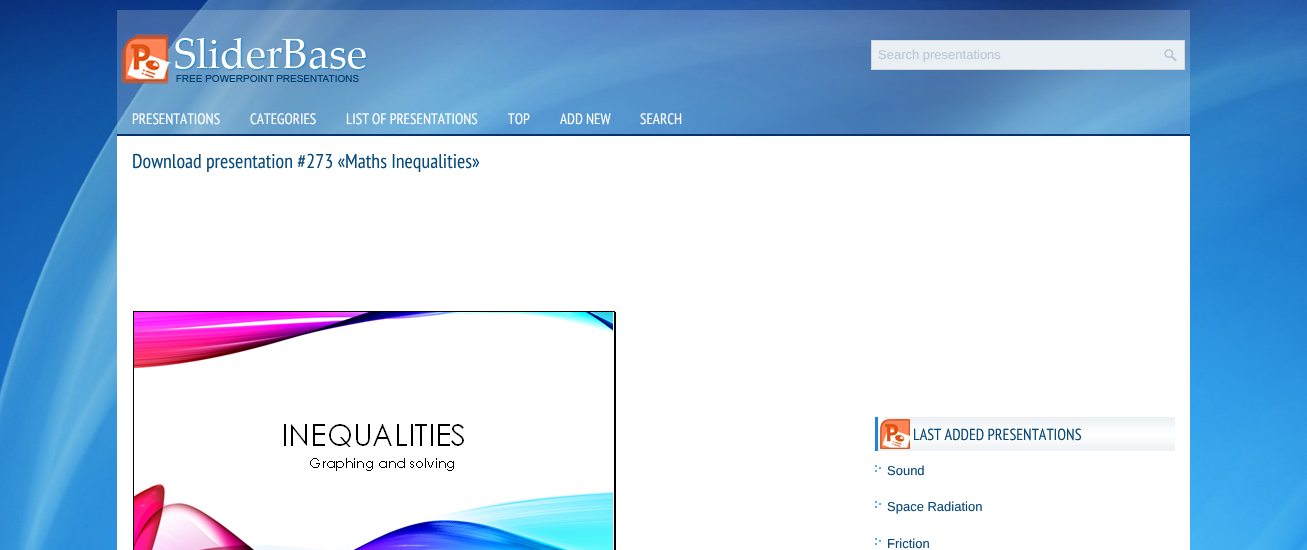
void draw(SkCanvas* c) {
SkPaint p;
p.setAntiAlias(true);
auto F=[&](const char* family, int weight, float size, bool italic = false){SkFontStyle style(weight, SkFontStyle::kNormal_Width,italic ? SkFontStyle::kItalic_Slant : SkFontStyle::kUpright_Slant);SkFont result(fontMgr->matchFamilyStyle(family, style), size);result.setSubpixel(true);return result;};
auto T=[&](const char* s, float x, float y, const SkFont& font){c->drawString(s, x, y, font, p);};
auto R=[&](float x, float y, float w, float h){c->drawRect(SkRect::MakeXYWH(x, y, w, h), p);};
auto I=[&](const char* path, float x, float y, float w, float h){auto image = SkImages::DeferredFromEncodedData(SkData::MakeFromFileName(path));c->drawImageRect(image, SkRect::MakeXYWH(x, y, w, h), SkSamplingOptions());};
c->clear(0xffffffff);
I("1.png",0,0,1307,550);
p.setColor(0x33ffffff);
R(117,10,1073,124);
I("2.png",121,34,247,50);
p.setColor(0xffe9eff3);
c->drawRect(SkRect::MakeXYWH(871.5,40.5,313,29),p);
p.setStroke(true);
p.setStrokeWidth(1);
p.setColor(0xffd0d9e0);
c->drawRect(SkRect::MakeXYWH(871.5,40.5,313,29),p);
auto f1 = F("Liberation Sans",400,13);
p.setStroke(false);
p.setColor(0xffbdc7d4);
T("Search presentations",878,59,f1);
I("3.png",1164,49,13,13);
p.setColor(0xff073268);
R(117,134,1073,2);
auto f2 = F("PT Sans Narrow",400,15);
p.setColor(0xffffffff);
T("PRESENTATIONS",132,124,f2);
T("CATEGORIES",250,124,f2);
T("LIST OF PRESENTATIONS",346,124,f2);
T("TOP",508,124,f2);
T("ADD NEW",560,124,f2);
T("SEARCH",640,124,f2);
R(117,136,1073,414);
auto f3 = F("PT Sans Narrow",400,20);
p.setColor(0xff084a7c);
T("Download presentation #273 «Maths Inequalities»",132,168,f3);
I("4.png",133,311,483,239);
I("5.png",878,417,297,34);
p.setColor(0xff2183de);
R(875,417,3,34);
auto f4 = F("PT Sans Narrow",400,16);
p.setColor(0xff084a7c);
T("LAST ADDED PRESENTATIONS",913,440,f4);
I("6.png",875,465,6,7);
T("Sound",887,475,f1);
I("6.png",875,501,6,7);
T("Space Radiation",887,511,f1);
I("6.png",875,538,6,7);
T("Friction",887,548,f1);
}
